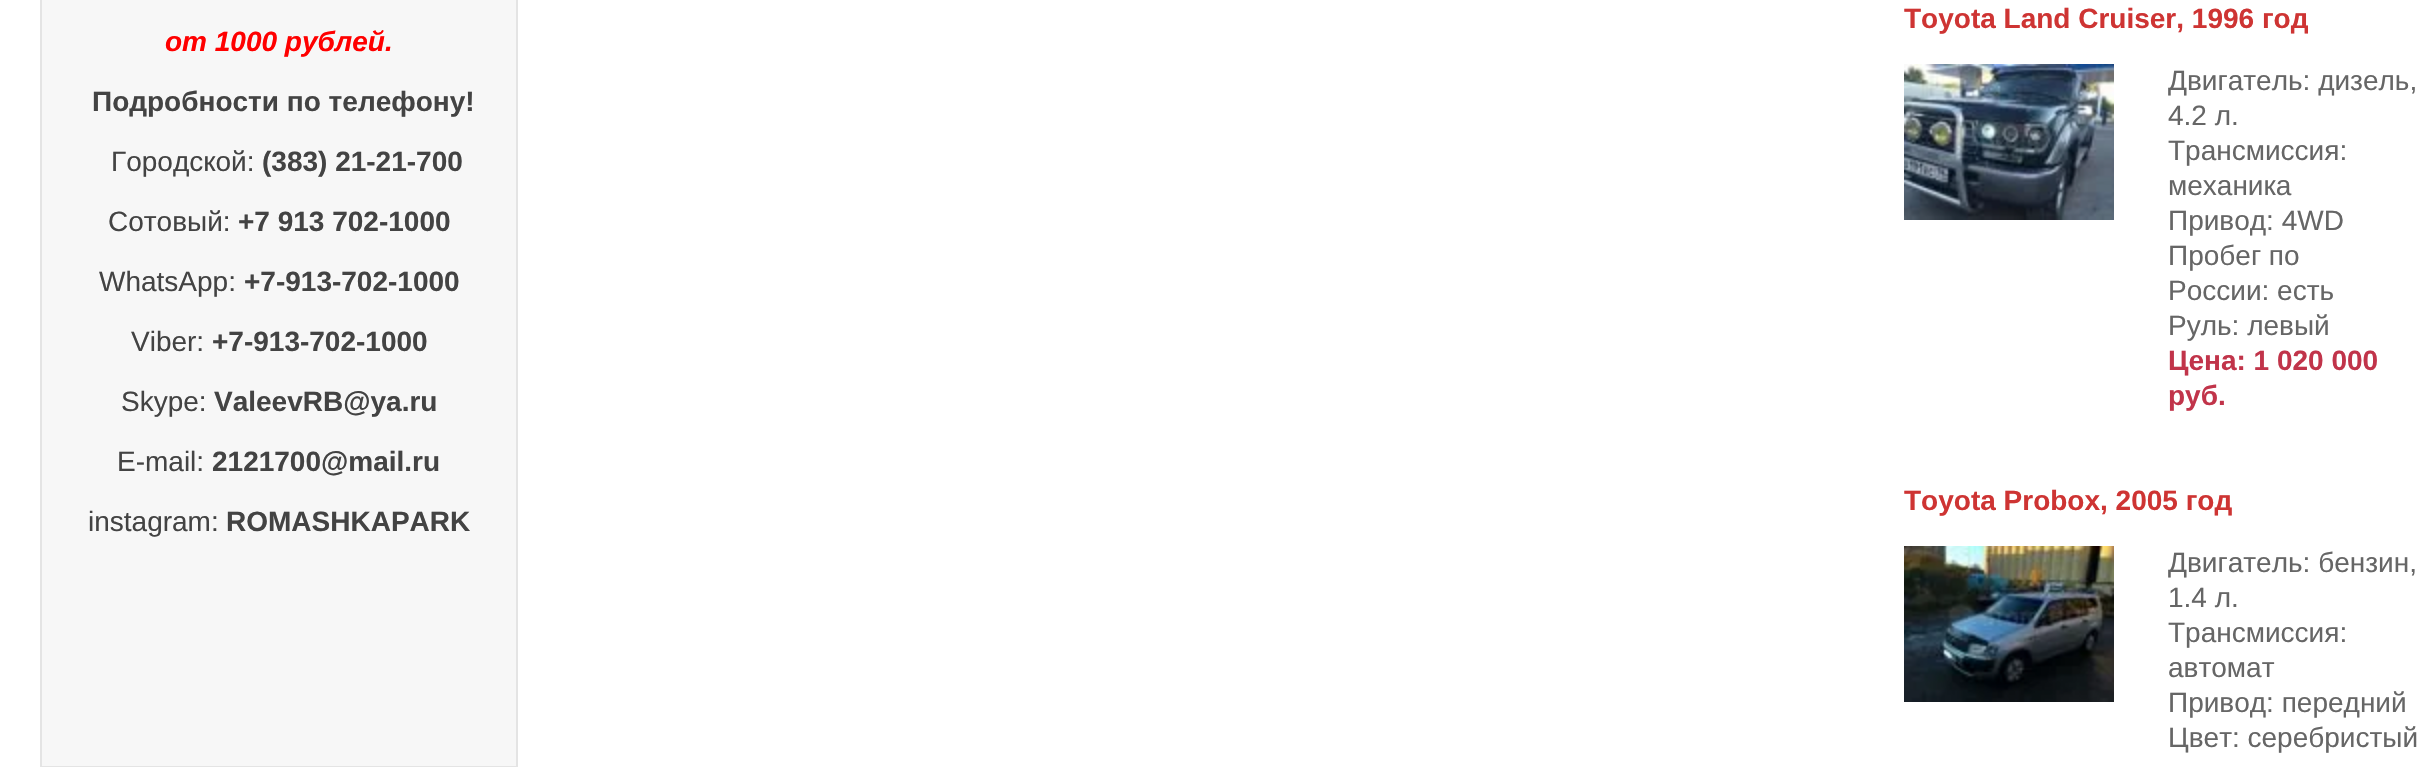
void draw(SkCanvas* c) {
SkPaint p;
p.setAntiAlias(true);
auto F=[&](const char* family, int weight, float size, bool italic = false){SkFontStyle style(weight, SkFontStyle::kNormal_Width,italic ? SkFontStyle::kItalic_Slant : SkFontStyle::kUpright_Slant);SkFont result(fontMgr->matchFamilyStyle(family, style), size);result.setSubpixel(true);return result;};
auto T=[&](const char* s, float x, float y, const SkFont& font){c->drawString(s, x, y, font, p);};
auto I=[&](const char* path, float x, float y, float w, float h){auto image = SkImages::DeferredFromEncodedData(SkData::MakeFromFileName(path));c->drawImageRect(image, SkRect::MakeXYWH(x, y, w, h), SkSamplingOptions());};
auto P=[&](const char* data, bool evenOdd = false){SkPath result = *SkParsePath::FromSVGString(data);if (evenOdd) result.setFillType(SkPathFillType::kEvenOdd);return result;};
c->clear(0xffffffff);
p.setColor(0xfff7f7f7);
c->drawPath(P("M48-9h462c4 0 7 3 7 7v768c0 .5-.5 1-1 1h-474c-.5 0-1-.5-1-1v-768c0-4 3-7 7-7z"),p);
p.setStroke(true);
p.setStrokeWidth(2);
p.setColor(0xffe4e4e4);
c->drawPath(P("M48-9h462c4 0 7 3 7 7v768c0 .5-.5 1-1 1h-474c-.5 0-1-.5-1-1v-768c0-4 3-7 7-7z"),p);
auto f1 = F("Liberation Sans",700,28,true);
p.setStroke(false);
p.setColor(0xffff0000);
T("от 1000 рублей.",165,51,f1);
auto f2 = F("Liberation Sans",700,28);
p.setColor(0xff434343);
T("Подробности по телефону!",92,111,f2);
auto f3 = F("Liberation Sans",400,28);
T("Городской:",111,171,f3);
T("(383) 21-21-700",262,171,f2);
T("Сотовый:",108,231,f3);
T("+7 913 702-1000",238,231,f2);
T("WhatsApp:",99,291,f3);
T("+7-913-702-1000",244,291,f2);
T("Viber:",131,351,f3);
T("+7-913-702-1000",212,351,f2);
T("Skype:",121,411,f3);
T("ValeevRB@ya.ru",214,411,f2);
T("E-mail:",117,471,f3);
T("2121700@mail.ru",212,471,f2);
T("instagram:",88,531,f3);
T("ROMASHKAPARK",226,531,f2);
p.setColor(0xffce3433);
T("Toyota Land Cruiser, 1996 год",1904,28,f2);
I("1.png",1904,64,210,156);
p.setColor(0xff666666);
T("Двигатель: дизель,",2168,90,f3);
T("4.2 л.",2168,125,f3);
T("Трансмиссия:",2168,160,f3);
T("механика",2168,195,f3);
T("Привод: 4WD",2168,230,f3);
T("Пробег по",2168,265,f3);
T("России: есть",2168,300,f3);
T("Руль: левый",2168,335,f3);
p.setColor(0xffc1344a);
T("Цена: 1 020 000",2168,370,f2);
T("руб.",2168,405,f2);
p.setColor(0xffce3433);
T("Toyota Probox, 2005 год",1904,510,f2);
I("2.png",1904,546,210,156);
p.setColor(0xff666666);
T("Двигатель: бензин,",2168,572,f3);
T("1.4 л.",2168,607,f3);
T("Трансмиссия:",2168,642,f3);
T("автомат",2168,677,f3);
T("Привод: передний",2168,712,f3);
T("Цвет: серебристый",2168,747,f3);
}
